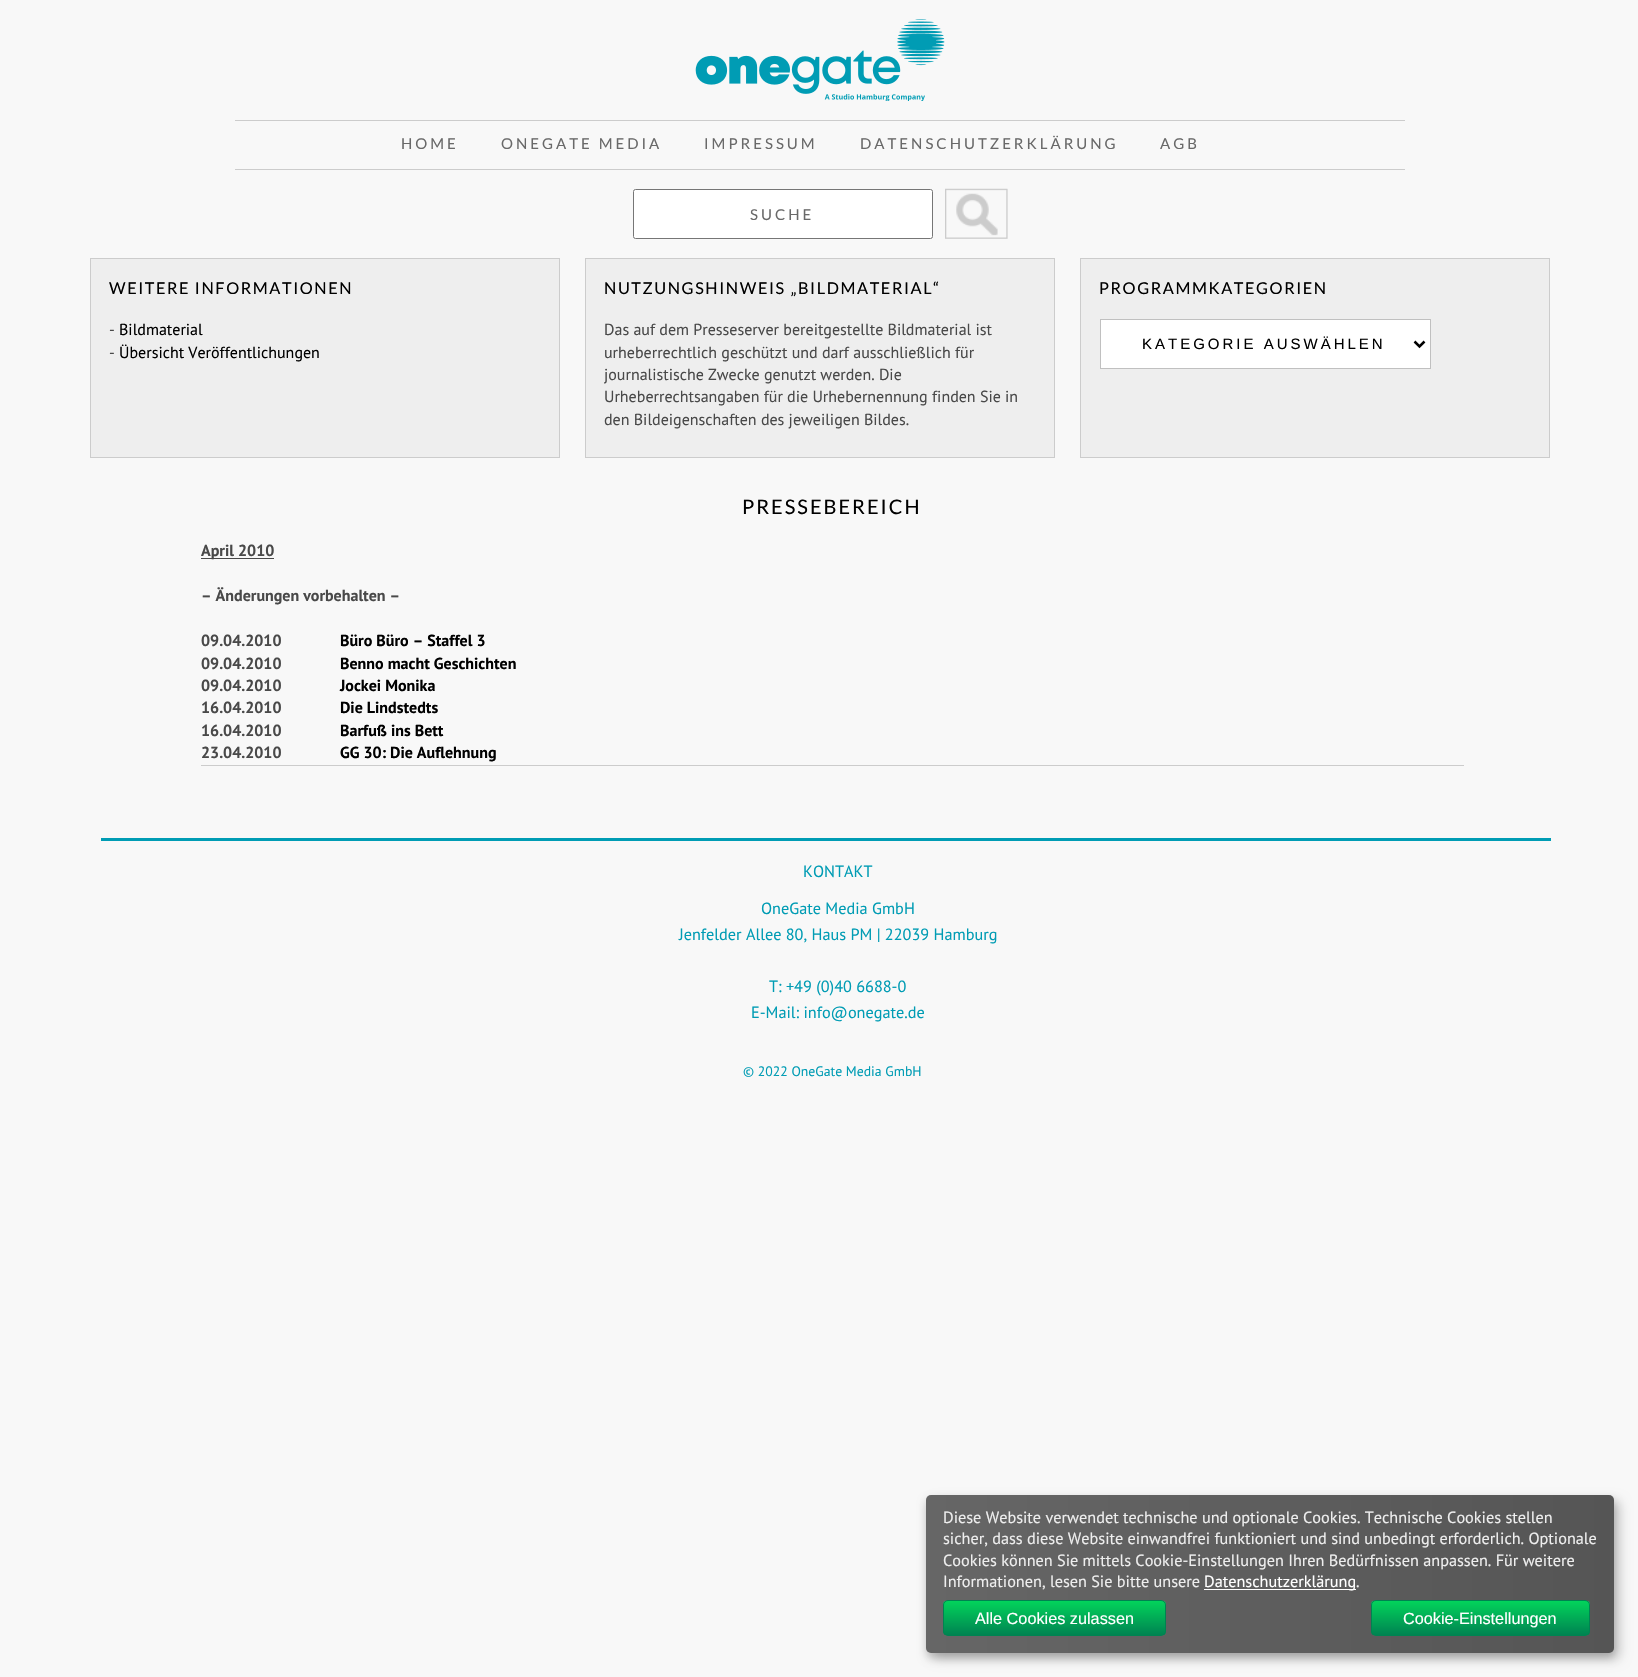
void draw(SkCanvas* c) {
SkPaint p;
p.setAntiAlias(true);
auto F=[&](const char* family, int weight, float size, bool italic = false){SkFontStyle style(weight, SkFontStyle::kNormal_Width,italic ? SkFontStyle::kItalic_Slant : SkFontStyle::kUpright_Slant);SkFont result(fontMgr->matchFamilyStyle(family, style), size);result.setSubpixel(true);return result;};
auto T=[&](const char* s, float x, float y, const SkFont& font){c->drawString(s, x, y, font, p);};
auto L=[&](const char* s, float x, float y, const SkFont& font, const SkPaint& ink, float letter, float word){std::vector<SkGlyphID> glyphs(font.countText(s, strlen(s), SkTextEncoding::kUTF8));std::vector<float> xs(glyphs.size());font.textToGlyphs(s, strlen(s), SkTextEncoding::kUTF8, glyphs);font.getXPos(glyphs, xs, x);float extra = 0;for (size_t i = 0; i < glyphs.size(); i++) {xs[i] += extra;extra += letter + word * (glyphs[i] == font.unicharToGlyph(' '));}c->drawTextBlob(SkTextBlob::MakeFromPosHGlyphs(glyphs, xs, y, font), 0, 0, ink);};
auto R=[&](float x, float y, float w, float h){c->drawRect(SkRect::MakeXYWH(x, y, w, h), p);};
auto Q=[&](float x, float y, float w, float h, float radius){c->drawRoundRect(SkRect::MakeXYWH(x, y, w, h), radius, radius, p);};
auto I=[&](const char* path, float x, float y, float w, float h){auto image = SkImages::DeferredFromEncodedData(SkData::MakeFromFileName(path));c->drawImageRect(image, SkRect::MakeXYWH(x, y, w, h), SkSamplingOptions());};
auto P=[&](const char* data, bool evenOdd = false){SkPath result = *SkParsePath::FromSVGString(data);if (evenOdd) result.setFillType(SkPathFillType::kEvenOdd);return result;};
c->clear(0xfff8f8f8);
I("1.png",695,19,250,82);
p.setColor(0xffcccccc);
R(235,120,1170,1);
R(235,169,1170,1);
auto f1 = F("Lato",400,15);
p.setColor(0xff696969);
L("HOME",401,149,f1,p,3,0);
L("ONEGATE MEDIA",501,149,f1,p,3,0);
L("IMPRESSUM",704,149,f1,p,3,0);
L("DATENSCHUTZERKLÄRUNG",860,149,f1,p,3,0);
L("AGB",1160,149,f1,p,3,0);
p.setColor(0xffffffff);
c->drawRoundRect(SkRect::MakeXYWH(633.5,189.5,299,49),2,2,p);
p.setStroke(true);
p.setStrokeWidth(1);
p.setColor(0xff767676);
c->drawRoundRect(SkRect::MakeXYWH(633.5,189.5,299,49),2,2,p);
p.setStroke(false);
p.setColor(0xff696969);
L("SUCHE",750,220,f1,p,3,0);
p.setColor(0xffefefef);
R(945,189,63,50);
I("2.png",945,188,63,51);
p.setColor(0xffeeeeee);
c->drawRect(SkRect::MakeXYWH(90.5,258.5,469,199),p);
p.setStroke(true);
p.setColor(0xffcccccc);
c->drawRect(SkRect::MakeXYWH(90.5,258.5,469,199),p);
auto f2 = F("Lato",400,16.25);
p.setStroke(false);
p.setColor(0xff000000);
L("WEITERE INFORMATIONEN",109,294,f2,p,1.6,0);
auto f3 = F("PT Sans",400,16);
p.setColor(0xff494949);
T("-",109,335,f3);
p.setColor(0xff000000);
T("Bildmaterial",119,335,f3);
p.setColor(0xff494949);
T("-",109,358,f3);
p.setColor(0xff000000);
T("Übersicht Veröffentlichungen",119,358,f3);
p.setColor(0xffeeeeee);
c->drawRect(SkRect::MakeXYWH(585.5,258.5,469,199),p);
p.setStroke(true);
p.setColor(0xffcccccc);
c->drawRect(SkRect::MakeXYWH(585.5,258.5,469,199),p);
p.setStroke(false);
p.setColor(0xff000000);
L("NUTZUNGSHINWEIS „BILDMATERIAL“",604,294,f2,p,1.6,0);
p.setColor(0xff494949);
T("Das auf dem Presseserver bereitgestellte Bildmaterial ist",604,335,f3);
T("urheberrechtlich geschützt und darf ausschließlich für",604,358,f3);
T("journalistische Zwecke genutzt werden. Die",604,380,f3);
T("Urheberrechtsangaben für die Urhebernennung finden Sie in",604,402,f3);
T("den Bildeigenschaften des jeweiligen Bildes.",604,425,f3);
p.setColor(0xffeeeeee);
c->drawRect(SkRect::MakeXYWH(1080.5,258.5,469,199),p);
p.setStroke(true);
p.setColor(0xffcccccc);
c->drawRect(SkRect::MakeXYWH(1080.5,258.5,469,199),p);
p.setStroke(false);
p.setColor(0xff000000);
L("PROGRAMMKATEGORIEN",1099,294,f2,p,1.6,0);
p.setColor(0xffffffff);
c->drawRect(SkRect::MakeXYWH(1100.5,319.5,330,49),p);
p.setStroke(true);
p.setColor(0xffc0c0c0);
c->drawRect(SkRect::MakeXYWH(1100.5,319.5,330,49),p);
p.setStrokeWidth(2.5);
p.setColor(0xff000000);
c->drawPath(P("M1414.5 341.5l5 5l5-5"),p);
auto f4 = F("Liberation Sans",400,15);
p.setStroke(false);
L("KATEGORIE AUSWÄHLEN",1142,349,f4,p,3,0);
auto f5 = F("Lato",400,20);
L("PRESSEBEREICH",742,514,f5,p,2,0);
p.setColor(0xff494949);
R(201,558,73,1);
auto f6 = F("PT Sans",700,16);
T("April 2010",201,556,f6);
T("– Änderungen vorbehalten –",201,601,f6);
T("09.04.2010",201,646,f6);
p.setColor(0xff000000);
T("Büro Büro – Staffel 3",340,646,f6);
p.setColor(0xff494949);
T("09.04.2010",201,669,f6);
p.setColor(0xff000000);
T("Benno macht Geschichten",340,669,f6);
p.setColor(0xff494949);
T("09.04.2010",201,691,f6);
p.setColor(0xff000000);
T("Jockei Monika",340,691,f6);
p.setColor(0xff494949);
T("16.04.2010",201,713,f6);
p.setColor(0xff000000);
T("Die Lindstedts",340,713,f6);
p.setColor(0xff494949);
T("16.04.2010",201,736,f6);
p.setColor(0xff000000);
T("Barfuß ins Bett",340,736,f6);
p.setColor(0xff494949);
T("23.04.2010",201,758,f6);
p.setColor(0xff000000);
T("GG 30: Die Auflehnung",340,758,f6);
p.setColor(0xffcccccc);
R(201,765,1263,1);
p.setColor(0xff009cb4);
R(101,838,1450,3);
auto f7 = F("PT Sans",400,16.25);
T("KONTAKT",803,877,f7);
T("OneGate Media GmbH",761,914,f7);
T("Jenfelder Allee 80, Haus PM | 22039 Hamburg",679,940,f7);
T("T: +49 (0)40 6688-0",769,992,f7);
T("E-Mail: info@onegate.de",751,1018,f7);
auto f8 = F("PT Sans",400,13.75);
T("© 2022 OneGate Media GmbH",743,1076,f8);
p.setColor(0x30000000);
p.setMaskFilter(SkMaskFilter::MakeBlur(kNormal_SkBlurStyle, 6));
c->drawRoundRect(SkRect::MakeXYWH(933,1501,687,158),5,5,p);
p.setMaskFilter(nullptr);
p.setColor(0x33000000);
p.setMaskFilter(SkMaskFilter::MakeBlur(kNormal_SkBlurStyle, 4));
c->drawRoundRect(SkRect::MakeXYWH(926,1500,688,158),5,5,p);
p.setMaskFilter(nullptr);
{
const SkColor colors[] = {0xff666666,0xff555555};
const float stops[] = {0,1};
const SkPoint ends[] = {{926,1574}, {1614,1574}};
p.setShader(SkGradientShader::MakeLinear(ends, colors, stops, 2, SkTileMode::kClamp));
p.setAlpha(255);
}
Q(926,1495,688,158,5);
p.setShader(nullptr);
p.setColor(0xffeeeeee);
T("Diese Website verwendet technische und optionale Cookies. Technische Cookies stellen",943,1523,f7);
T("sicher, dass diese Website einwandfrei funktioniert und sind unbedingt erforderlich. Optionale",943,1544,f7);
T("Cookies können Sie mittels Cookie-Einstellungen Ihren Bedürfnissen anpassen. Für weitere",943,1566,f7);
T("Informationen, lesen Sie bitte unsere",943,1587,f7);
p.setColor(0xffffffff);
R(1204,1589,152,1);
T("Datenschutzerklärung",1204,1587,f7);
p.setColor(0xffeeeeee);
T(".",1356,1587,f7);
c->save();
c->clipPath(P("M948 1600h213c3 0 5 2 5 5v26c0 3-2 5-5 5h-213c-3 0-5-2-5-5v-26c0-3 2-5 5-5z"),true);
{
const SkColor colors[] = {0xff02d45b,0xff008351};
const float stops[] = {0,1};
const SkPoint ends[] = {{1054,1601}, {1054,1635}};
p.setShader(SkGradientShader::MakeLinear(ends, colors, stops, 2, SkTileMode::kClamp));
p.setAlpha(255);
}
R(943,1601,223,34);
c->restore();
p.setStroke(true);
p.setStrokeWidth(1);
p.setShader(nullptr);
p.setColor(0xff008351);
c->drawRoundRect(SkRect::MakeXYWH(943.5,1600.5,222,35),4.5,4.5,p);
auto f9 = F("Liberation Sans",400,16.25);
p.setStroke(false);
p.setColor(0xffffffff);
T("Alle Cookies zulassen",975,1624,f9);
c->save();
c->clipPath(P("M1376 1600h209c3 0 5 2 5 5v26c0 3-2 5-5 5h-209c-3 0-5-2-5-5v-26c0-3 2-5 5-5z"),true);
{
const SkColor colors[] = {0xff02d45b,0xff008351};
const float stops[] = {0,1};
const SkPoint ends[] = {{1481,1601}, {1481,1635}};
p.setShader(SkGradientShader::MakeLinear(ends, colors, stops, 2, SkTileMode::kClamp));
p.setAlpha(255);
}
R(1371,1601,219,34);
c->restore();
p.setStroke(true);
p.setShader(nullptr);
p.setColor(0xff008351);
c->drawRoundRect(SkRect::MakeXYWH(1371.5,1600.5,218,35),4.5,4.5,p);
p.setStroke(false);
p.setColor(0xffffffff);
T("Cookie-Einstellungen",1403,1624,f9);
}
